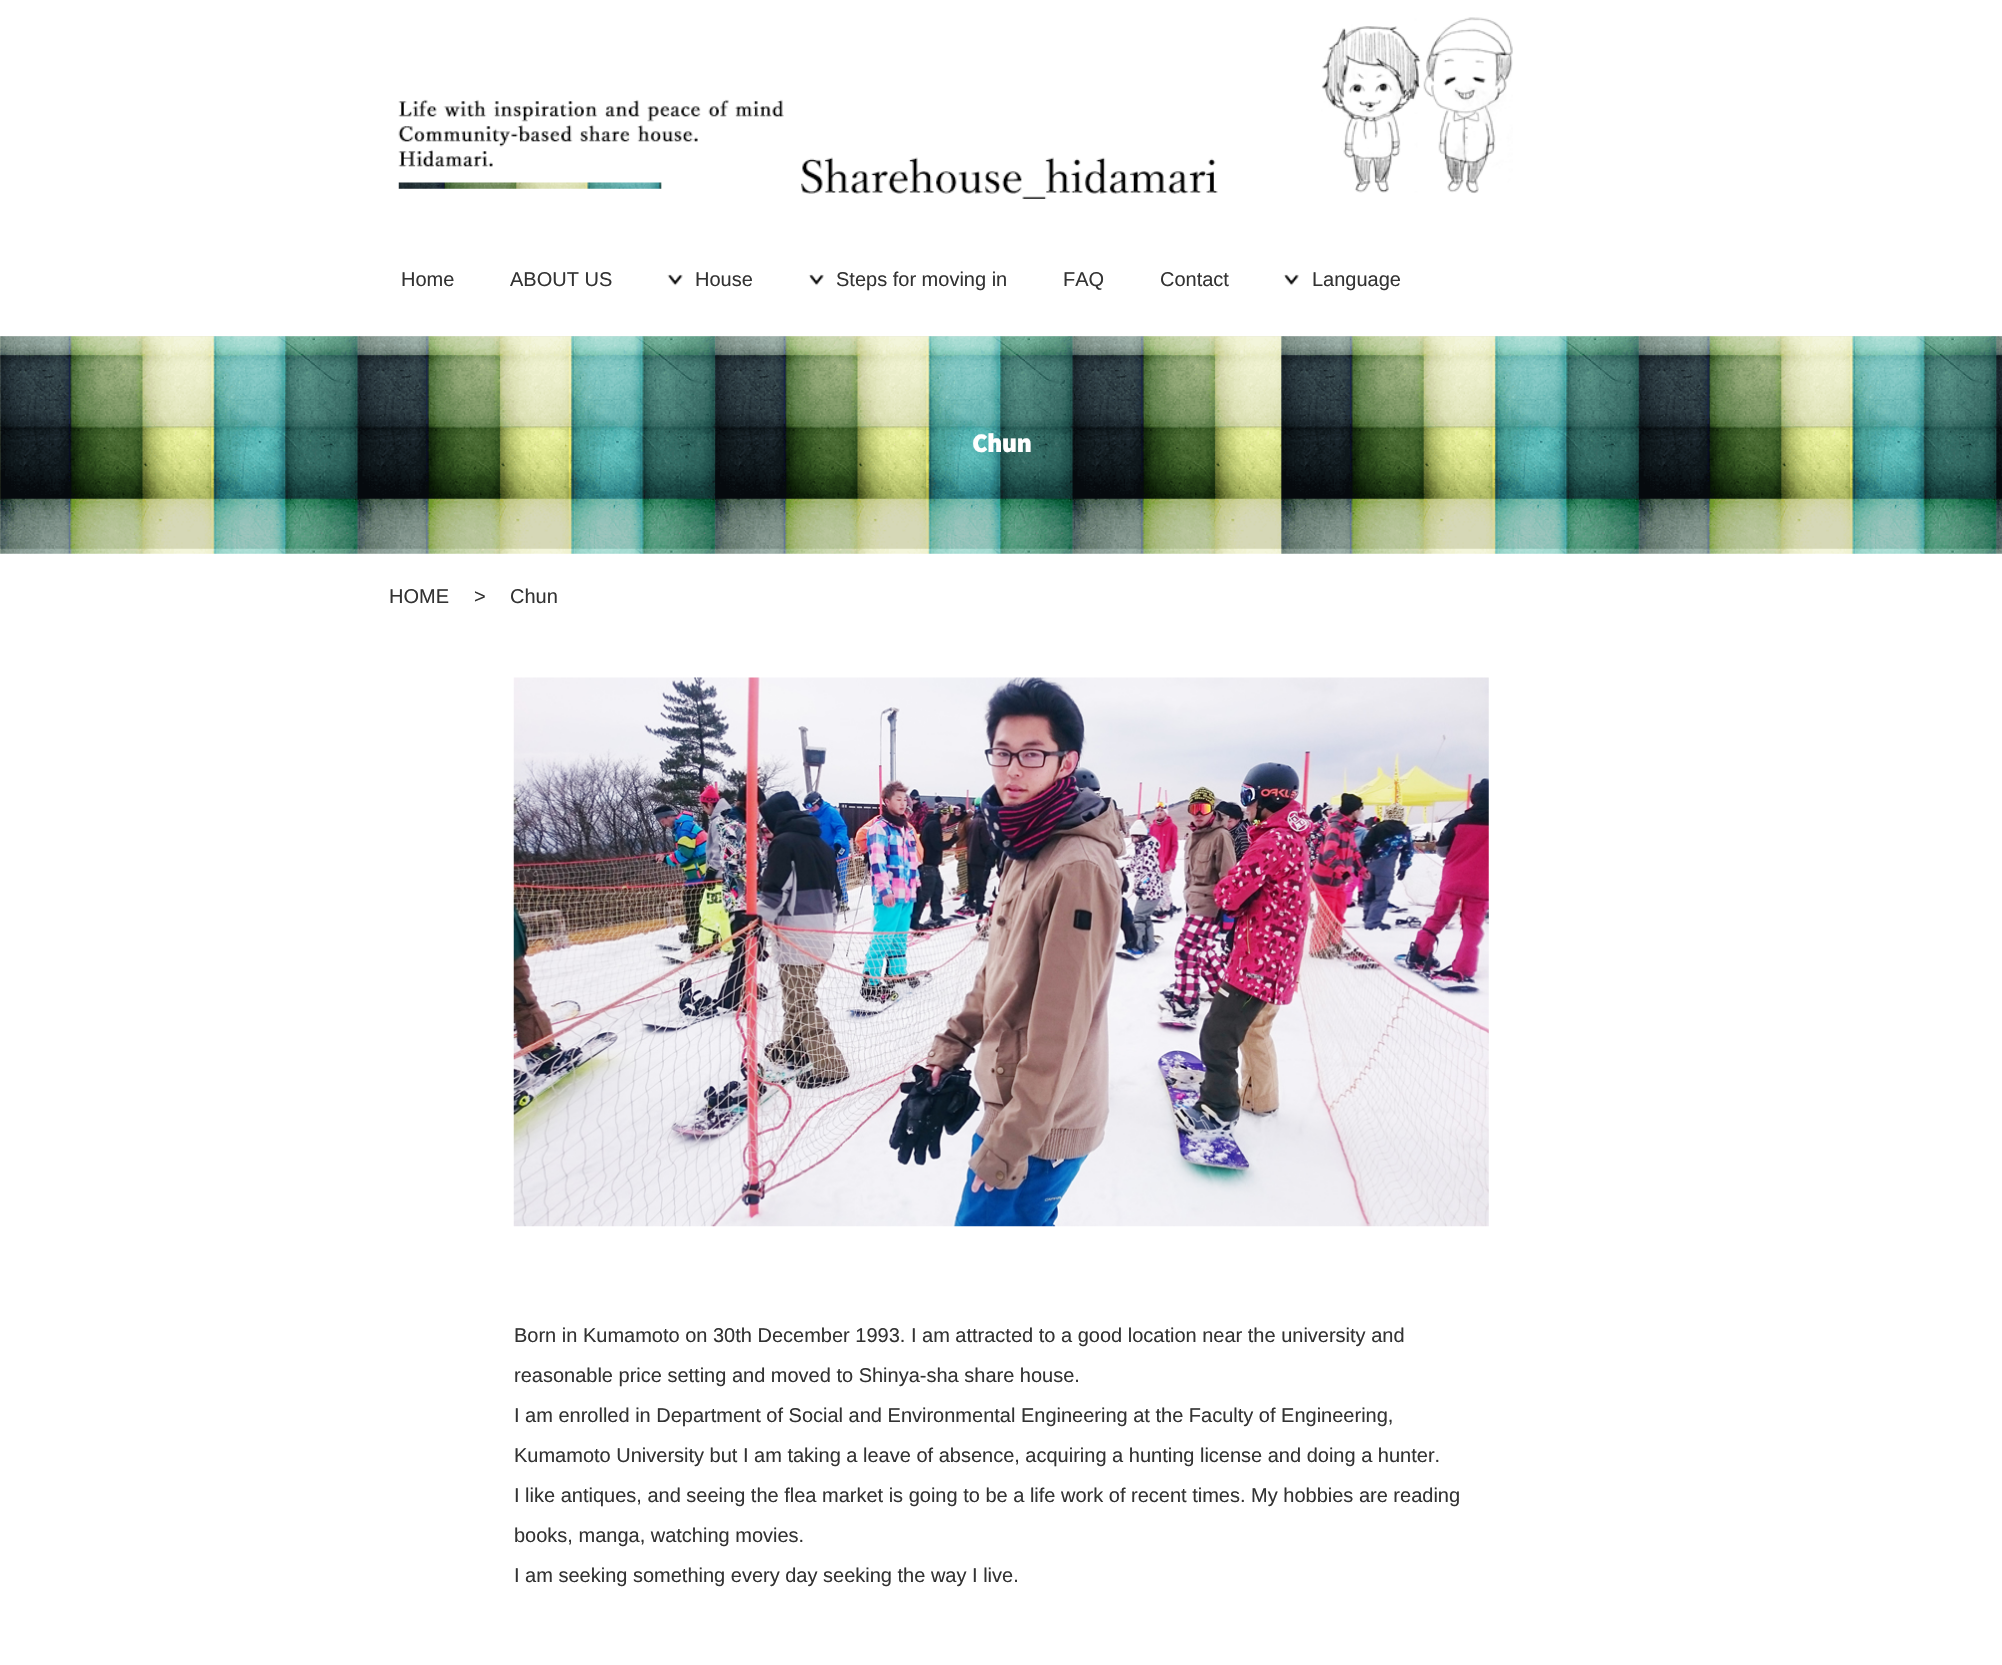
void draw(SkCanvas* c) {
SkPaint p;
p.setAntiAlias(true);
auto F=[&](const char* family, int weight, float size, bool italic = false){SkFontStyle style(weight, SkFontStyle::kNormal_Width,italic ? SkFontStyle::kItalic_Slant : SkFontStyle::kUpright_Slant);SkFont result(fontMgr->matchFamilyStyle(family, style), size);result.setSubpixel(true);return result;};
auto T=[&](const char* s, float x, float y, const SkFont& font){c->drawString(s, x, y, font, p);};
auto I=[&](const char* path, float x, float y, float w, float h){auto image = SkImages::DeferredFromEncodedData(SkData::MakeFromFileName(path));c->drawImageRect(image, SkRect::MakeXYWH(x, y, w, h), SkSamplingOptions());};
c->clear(0xffffffff);
I("1.png",398,99,386,90);
I("2.png",801,157,417,42);
I("3.png",1321,17,192,177);
auto f1 = F("Liberation Sans",400,20);
p.setColor(0xff333333);
T("Home",401,286,f1);
T("ABOUT US",510,286,f1);
I("4.png",667,274,16,12);
T("House",695,286,f1);
I("5.png",808,274,16,12);
T("Steps for moving in",836,286,f1);
T("FAQ",1063,286,f1);
T("Contact",1160,286,f1);
I("6.png",1283,274,16,12);
T("Language",1312,286,f1);
I("7.png",0,336,2002,218);
auto f2 = F("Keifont",700,22.5);
p.setColor(0xffffffff);
T("Chun",972,452,f2);
p.setColor(0xff333333);
T("HOME",389,603,f1);
T(">",474,603,f1);
T("Chun",510,603,f1);
I("8.png",513,677,976,550);
T("Born in Kumamoto on 30th December 1993. I am attracted to a good location near the university and",514,1342,f1);
T("reasonable price setting and moved to Shinya-sha share house.",514,1382,f1);
T("I am enrolled in Department of Social and Environmental Engineering at the Faculty of Engineering,",514,1422,f1);
T("Kumamoto University but I am taking a leave of absence, acquiring a hunting license and doing a hunter.",514,1462,f1);
T("I like antiques, and seeing the flea market is going to be a life work of recent times. My hobbies are reading",514,1502,f1);
T("books, manga, watching movies.",514,1542,f1);
T("I am seeking something every day seeking the way I live.",514,1582,f1);
}
